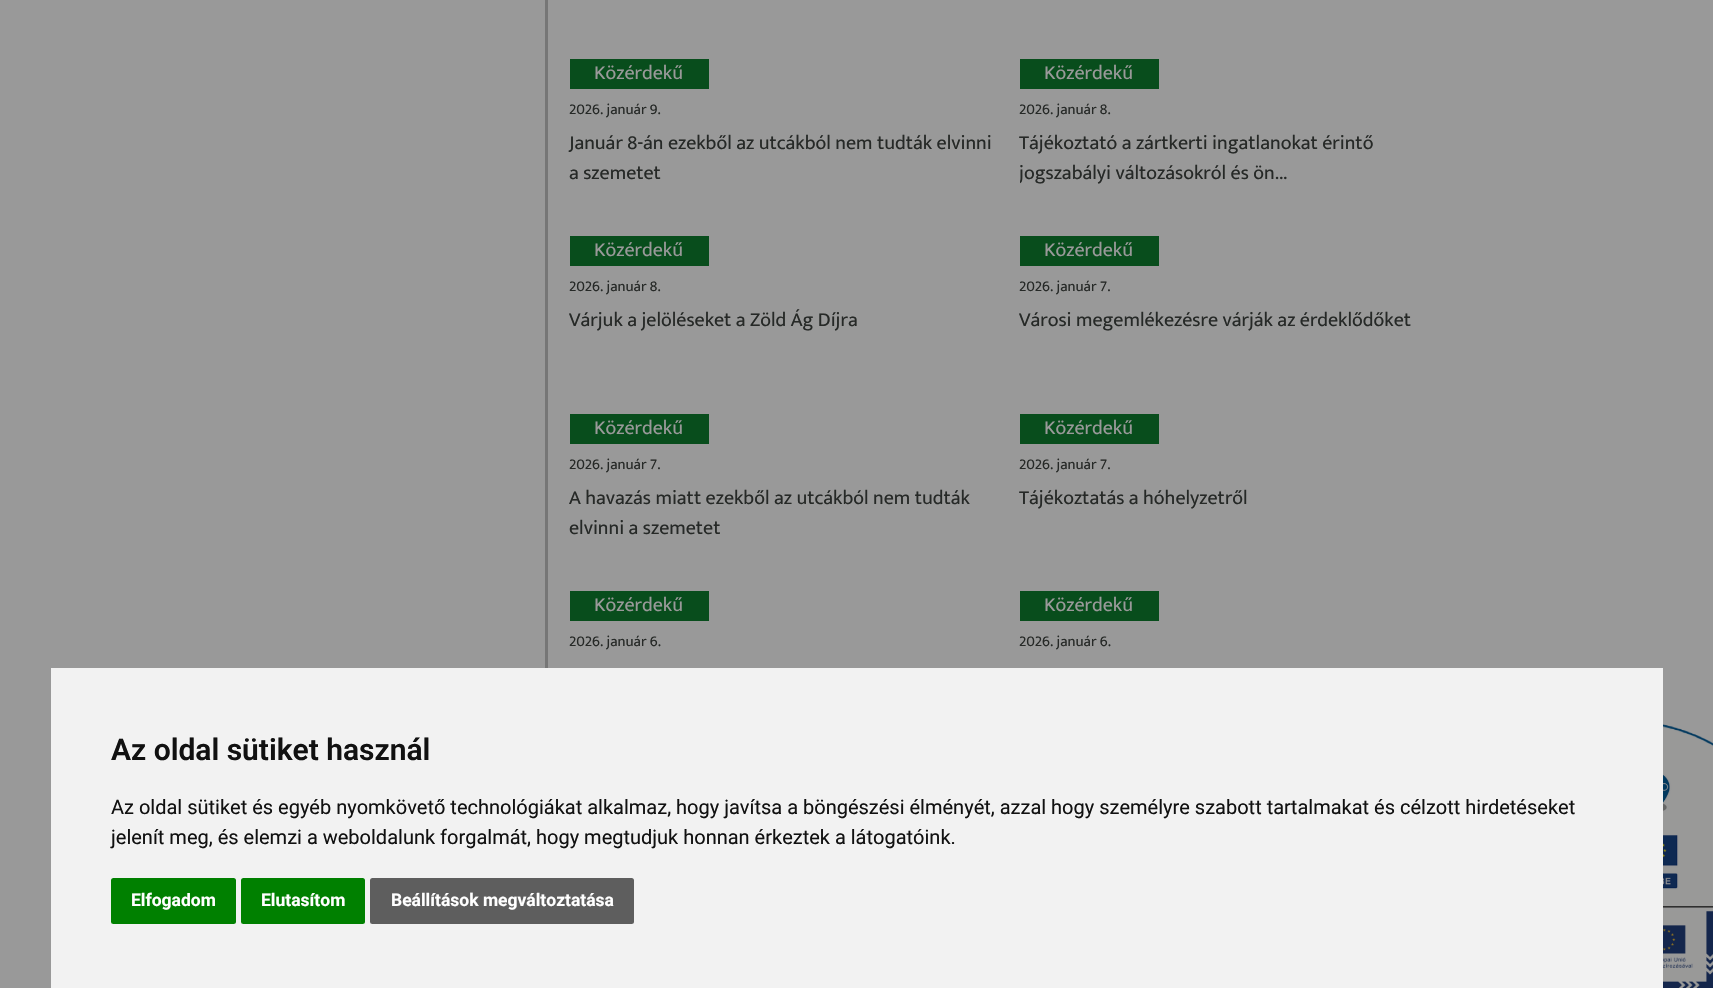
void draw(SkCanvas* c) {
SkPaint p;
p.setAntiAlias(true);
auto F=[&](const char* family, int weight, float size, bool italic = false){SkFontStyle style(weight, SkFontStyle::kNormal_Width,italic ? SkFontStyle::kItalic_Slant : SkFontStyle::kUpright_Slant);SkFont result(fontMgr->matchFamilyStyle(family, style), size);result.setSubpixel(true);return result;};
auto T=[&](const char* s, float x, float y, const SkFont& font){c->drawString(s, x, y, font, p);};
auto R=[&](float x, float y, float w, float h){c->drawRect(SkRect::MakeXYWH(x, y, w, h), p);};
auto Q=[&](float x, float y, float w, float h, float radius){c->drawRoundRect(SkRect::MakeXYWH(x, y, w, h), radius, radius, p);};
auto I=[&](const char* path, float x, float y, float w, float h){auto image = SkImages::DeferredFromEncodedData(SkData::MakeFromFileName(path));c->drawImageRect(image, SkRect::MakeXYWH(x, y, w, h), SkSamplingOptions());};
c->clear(0xff999999);
p.setColor(0xff767676);
R(545,0,3,668);
p.setColor(0xff084d1c);
R(570,59,139,30);
auto f1 = F("Mukta",400,20);
p.setColor(0xff999999);
T("Közérdekű",594,79,f1);
auto f2 = F("Mukta",400,15);
p.setColor(0xff262927);
T("2026. január 9.",569,114,f2);
T("Január 8-án ezekből az utcákból nem tudták elvinni",569,149,f1);
T("a szemetet",569,179,f1);
p.setColor(0xff084d1c);
R(1020,59,139,30);
p.setColor(0xff999999);
T("Közérdekű",1044,79,f1);
p.setColor(0xff262927);
T("2026. január 8.",1019,114,f2);
T("Tájékoztató a zártkerti ingatlanokat érintő",1019,149,f1);
c->save();
c->clipRect(SkRect::MakeXYWH(1020,129,425,60));
T("jogszabályi változásokról és ön...",1019,179,f1);
c->restore();
p.setColor(0xff084d1c);
R(570,236,139,30);
p.setColor(0xff999999);
T("Közérdekű",594,256,f1);
p.setColor(0xff262927);
T("2026. január 8.",569,291,f2);
T("Várjuk a jelöléseket a Zöld Ág Díjra",569,326,f1);
p.setColor(0xff084d1c);
R(1020,236,139,30);
p.setColor(0xff999999);
T("Közérdekű",1044,256,f1);
p.setColor(0xff262927);
T("2026. január 7.",1019,291,f2);
T("Városi megemlékezésre várják az érdeklődőket",1019,326,f1);
p.setColor(0xff084d1c);
R(570,414,139,30);
p.setColor(0xff999999);
T("Közérdekű",594,434,f1);
p.setColor(0xff262927);
T("2026. január 7.",569,469,f2);
T("A havazás miatt ezekből az utcákból nem tudták",569,504,f1);
T("elvinni a szemetet",569,534,f1);
p.setColor(0xff084d1c);
R(1020,414,139,30);
p.setColor(0xff999999);
T("Közérdekű",1044,434,f1);
p.setColor(0xff262927);
T("2026. január 7.",1019,469,f2);
T("Tájékoztatás a hóhelyzetről",1019,504,f1);
p.setColor(0xff084d1c);
R(570,591,139,30);
p.setColor(0xff999999);
T("Közérdekű",594,611,f1);
p.setColor(0xff262927);
T("2026. január 6.",569,646,f2);
p.setColor(0xff084d1c);
R(1020,591,139,30);
p.setColor(0xff999999);
T("Közérdekű",1044,611,f1);
p.setColor(0xff262927);
T("2026. január 6.",1019,646,f2);
p.setColor(0xfff2f2f2);
R(51,668,1612,320);
auto f3 = F("Roboto",600,30);
p.setColor(0xff111111);
T("Az oldal sütiket használ",111,760,f3);
auto f4 = F("Roboto",400,20);
T("Az oldal sütiket és egyéb nyomkövető technológiákat alkalmaz, hogy javítsa a böngészési élményét, azzal hogy személyre szabott tartalmakat és célzott hirdetéseket",111,814,f4);
T("jelenít meg, és elemzi a weboldalunk forgalmát, hogy megtudjuk honnan érkeztek a látogatóink.",111,844,f4);
p.setColor(0xff008000);
Q(111,878,125,46,2.5);
auto f5 = F("Roboto",700,17.5);
p.setColor(0xffffffff);
T("Elfogadom",131,906,f5);
p.setColor(0xff008000);
Q(241,878,124,46,2.5);
p.setColor(0xffffffff);
T("Elutasítom",261,906,f5);
p.setColor(0xff5e5e5e);
Q(370,878,264,46,2.5);
p.setColor(0xffffffff);
T("Beállítások megváltoztatása",391,906,f5);
I("1.png",1663,724,50,184);
I("2.png",1663,911,50,77);
}
